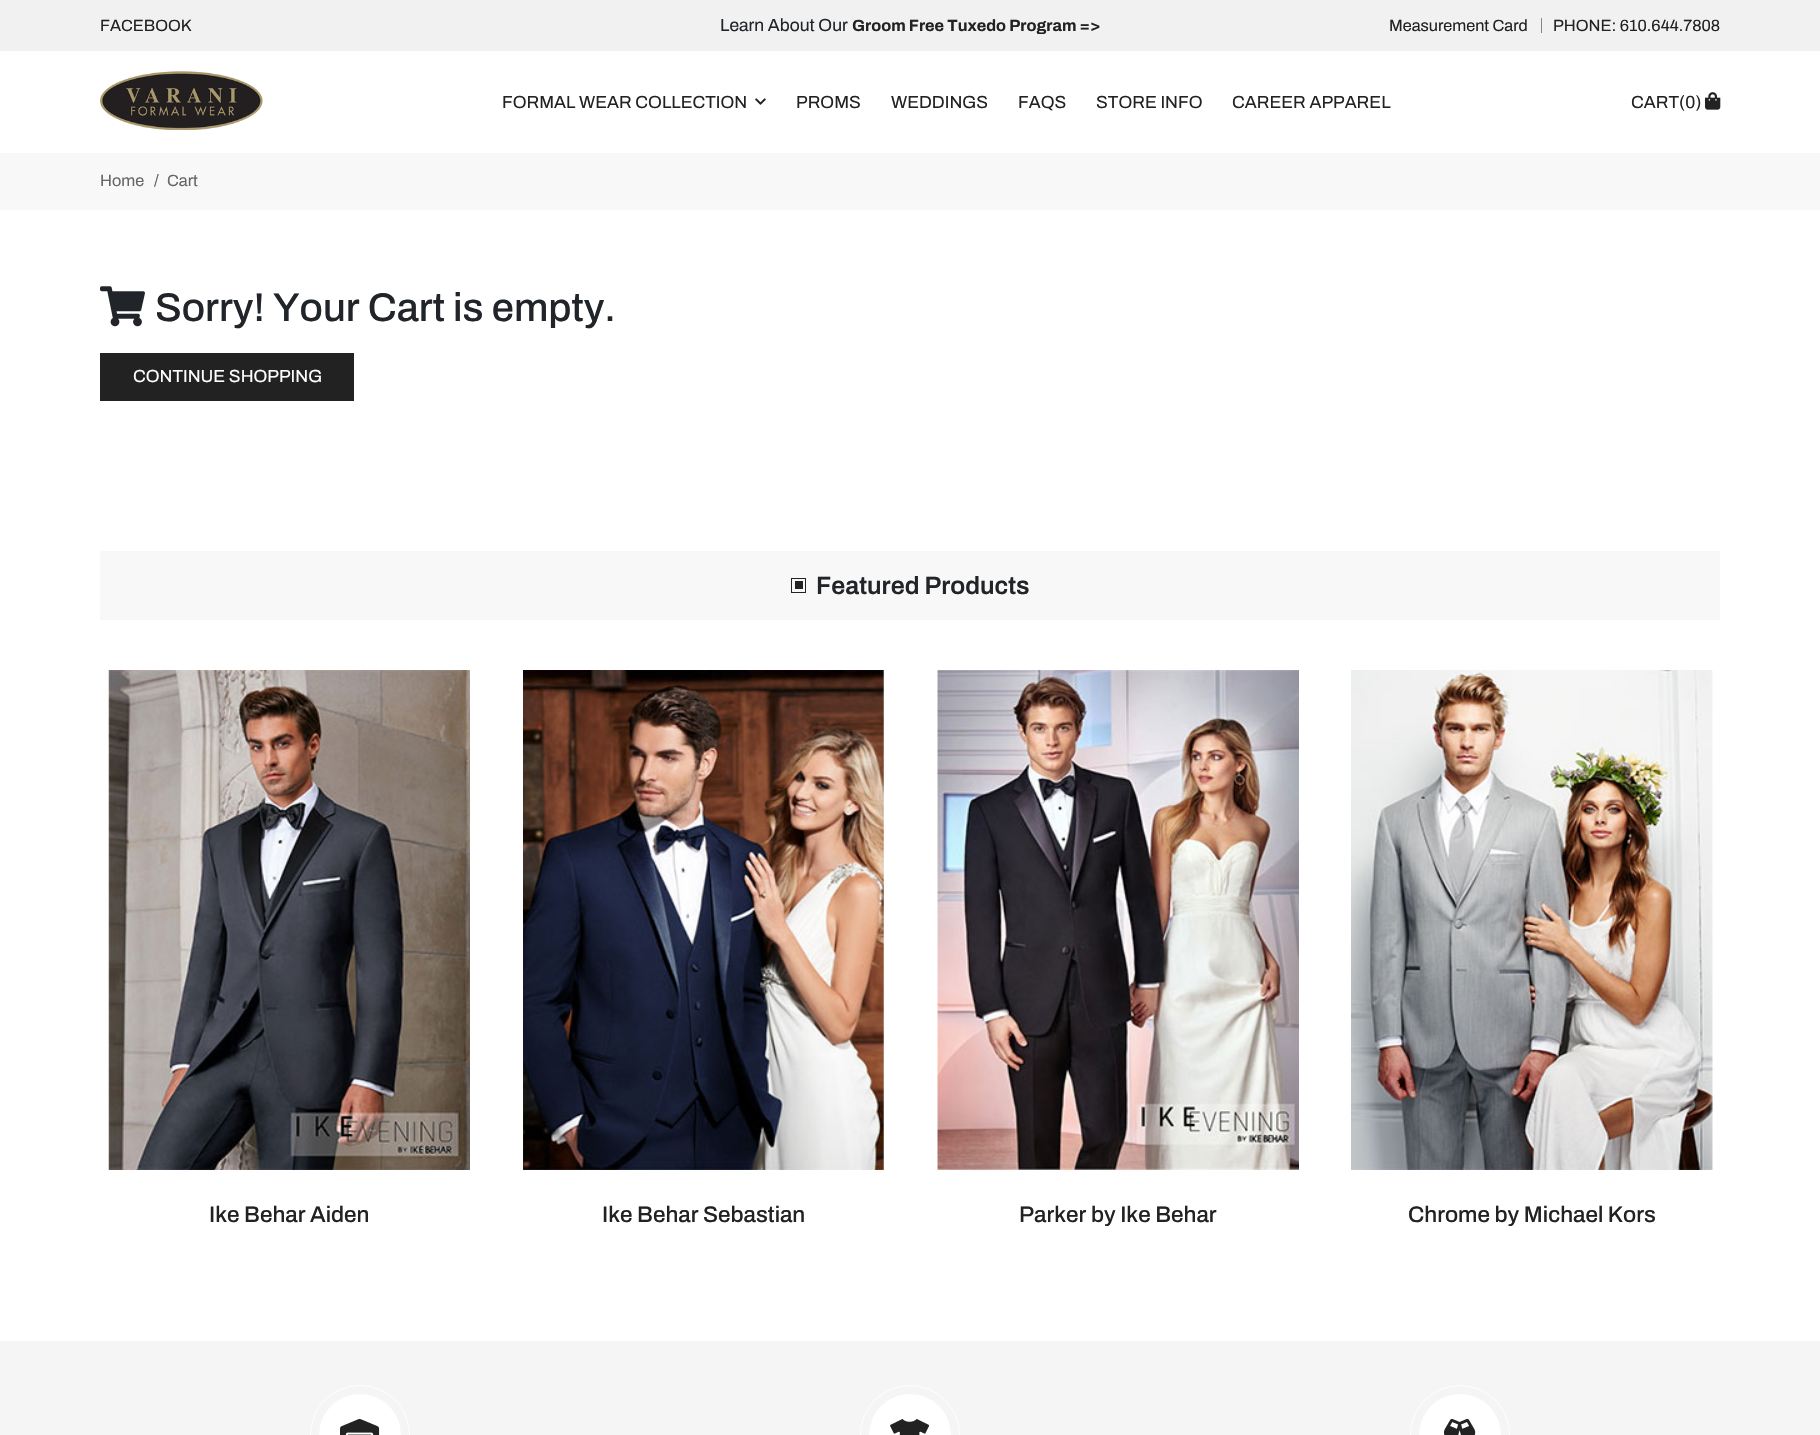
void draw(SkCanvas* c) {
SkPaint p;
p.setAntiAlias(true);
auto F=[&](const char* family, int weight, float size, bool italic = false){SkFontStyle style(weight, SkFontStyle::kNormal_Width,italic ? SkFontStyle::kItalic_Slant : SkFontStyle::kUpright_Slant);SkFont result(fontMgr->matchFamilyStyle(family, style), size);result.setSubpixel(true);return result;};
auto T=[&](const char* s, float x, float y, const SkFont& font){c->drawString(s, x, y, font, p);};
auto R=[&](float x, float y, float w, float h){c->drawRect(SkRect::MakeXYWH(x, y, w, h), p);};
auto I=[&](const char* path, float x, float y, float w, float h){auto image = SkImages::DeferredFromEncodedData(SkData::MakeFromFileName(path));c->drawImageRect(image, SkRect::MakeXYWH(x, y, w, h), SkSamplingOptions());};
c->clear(0xffffffff);
p.setColor(0xfff1f1f1);
R(0,0,1820,51);
auto f1 = F("Archivo",400,16.25);
p.setColor(0xff222222);
T("FACEBOOK",100,31,f1);
auto f2 = F("Archivo",400,17.5);
p.setColor(0xff212529);
T("Learn About Our",720,31,f2);
auto f3 = F("Archivo",700,16.25);
p.setColor(0xff222222);
T("Groom Free Tuxedo Program =>",852,31,f3);
T("Measurement Card",1389,31,f1);
p.setColor(0xff888888);
R(1541,18,1,15);
p.setColor(0xff222222);
T("PHONE: 610.644.7808",1553,31,f1);
I("1.png",100,71,163,59);
T("FORMAL WEAR COLLECTION",502,108,f2);
I("2.png",755,98,11,7);
T("PROMS",796,108,f2);
T("WEDDINGS",891,108,f2);
T("FAQS",1018,108,f2);
T("STORE INFO",1096,108,f2);
T("CAREER APPAREL",1232,108,f2);
T("CART(0)",1631,108,f2);
I("3.png",1705,92,16,18);
p.setColor(0xfff8f8f8);
R(0,153,1820,57);
p.setColor(0xff666666);
T("Home",100,186,f1);
T("/",154,186,f1);
T("Cart",167,186,f1);
I("4.png",100,286,45,41);
auto f4 = F("Archivo",500,40);
p.setColor(0xff212529);
T("Sorry! Your Cart is empty.",155,321,f4);
p.setColor(0xff222222);
R(100,353,254,48);
p.setColor(0xffffffff);
T("CONTINUE SHOPPING",133,382,f2);
p.setColor(0xfff8f8f8);
R(100,551,1620,69);
p.setStroke(true);
p.setStrokeWidth(1);
p.setColor(0xff222222);
c->drawRect(SkRect::MakeXYWH(791.5,578.5,14,14),p);
p.setStroke(false);
R(795,581,8,8);
auto f5 = F("Archivo",600,25);
p.setColor(0xff212529);
T("Featured Products",816,594,f5);
I("5.png",108,670,362,500);
auto f6 = F("Archivo",500,22.5);
p.setColor(0xff222222);
T("Ike Behar Aiden",209,1222,f6);
I("6.png",523,670,361,500);
T("Ike Behar Sebastian",602,1222,f6);
I("7.png",937,670,362,500);
T("Parker by Ike Behar",1019,1222,f6);
I("8.png",1351,670,362,500);
T("Chrome by Michael Kors",1408,1222,f6);
p.setColor(0xfff5f5f5);
R(0,1341,1820,94);
p.setStroke(true);
p.setColor(0xffffffff);
c->drawCircle(360,1435,49.5,p);
p.setStroke(false);
c->drawCircle(360,1435,41,p);
I("9.png",340,1418,40,17);
p.setStroke(true);
c->drawCircle(910,1435,49.5,p);
p.setStroke(false);
c->drawCircle(910,1435,41,p);
I("10.png",890,1419,40,16);
p.setStroke(true);
c->drawCircle(1460,1435,49.5,p);
p.setStroke(false);
c->drawCircle(1460,1435,41,p);
I("11.png",1444,1418,32,17);
}
